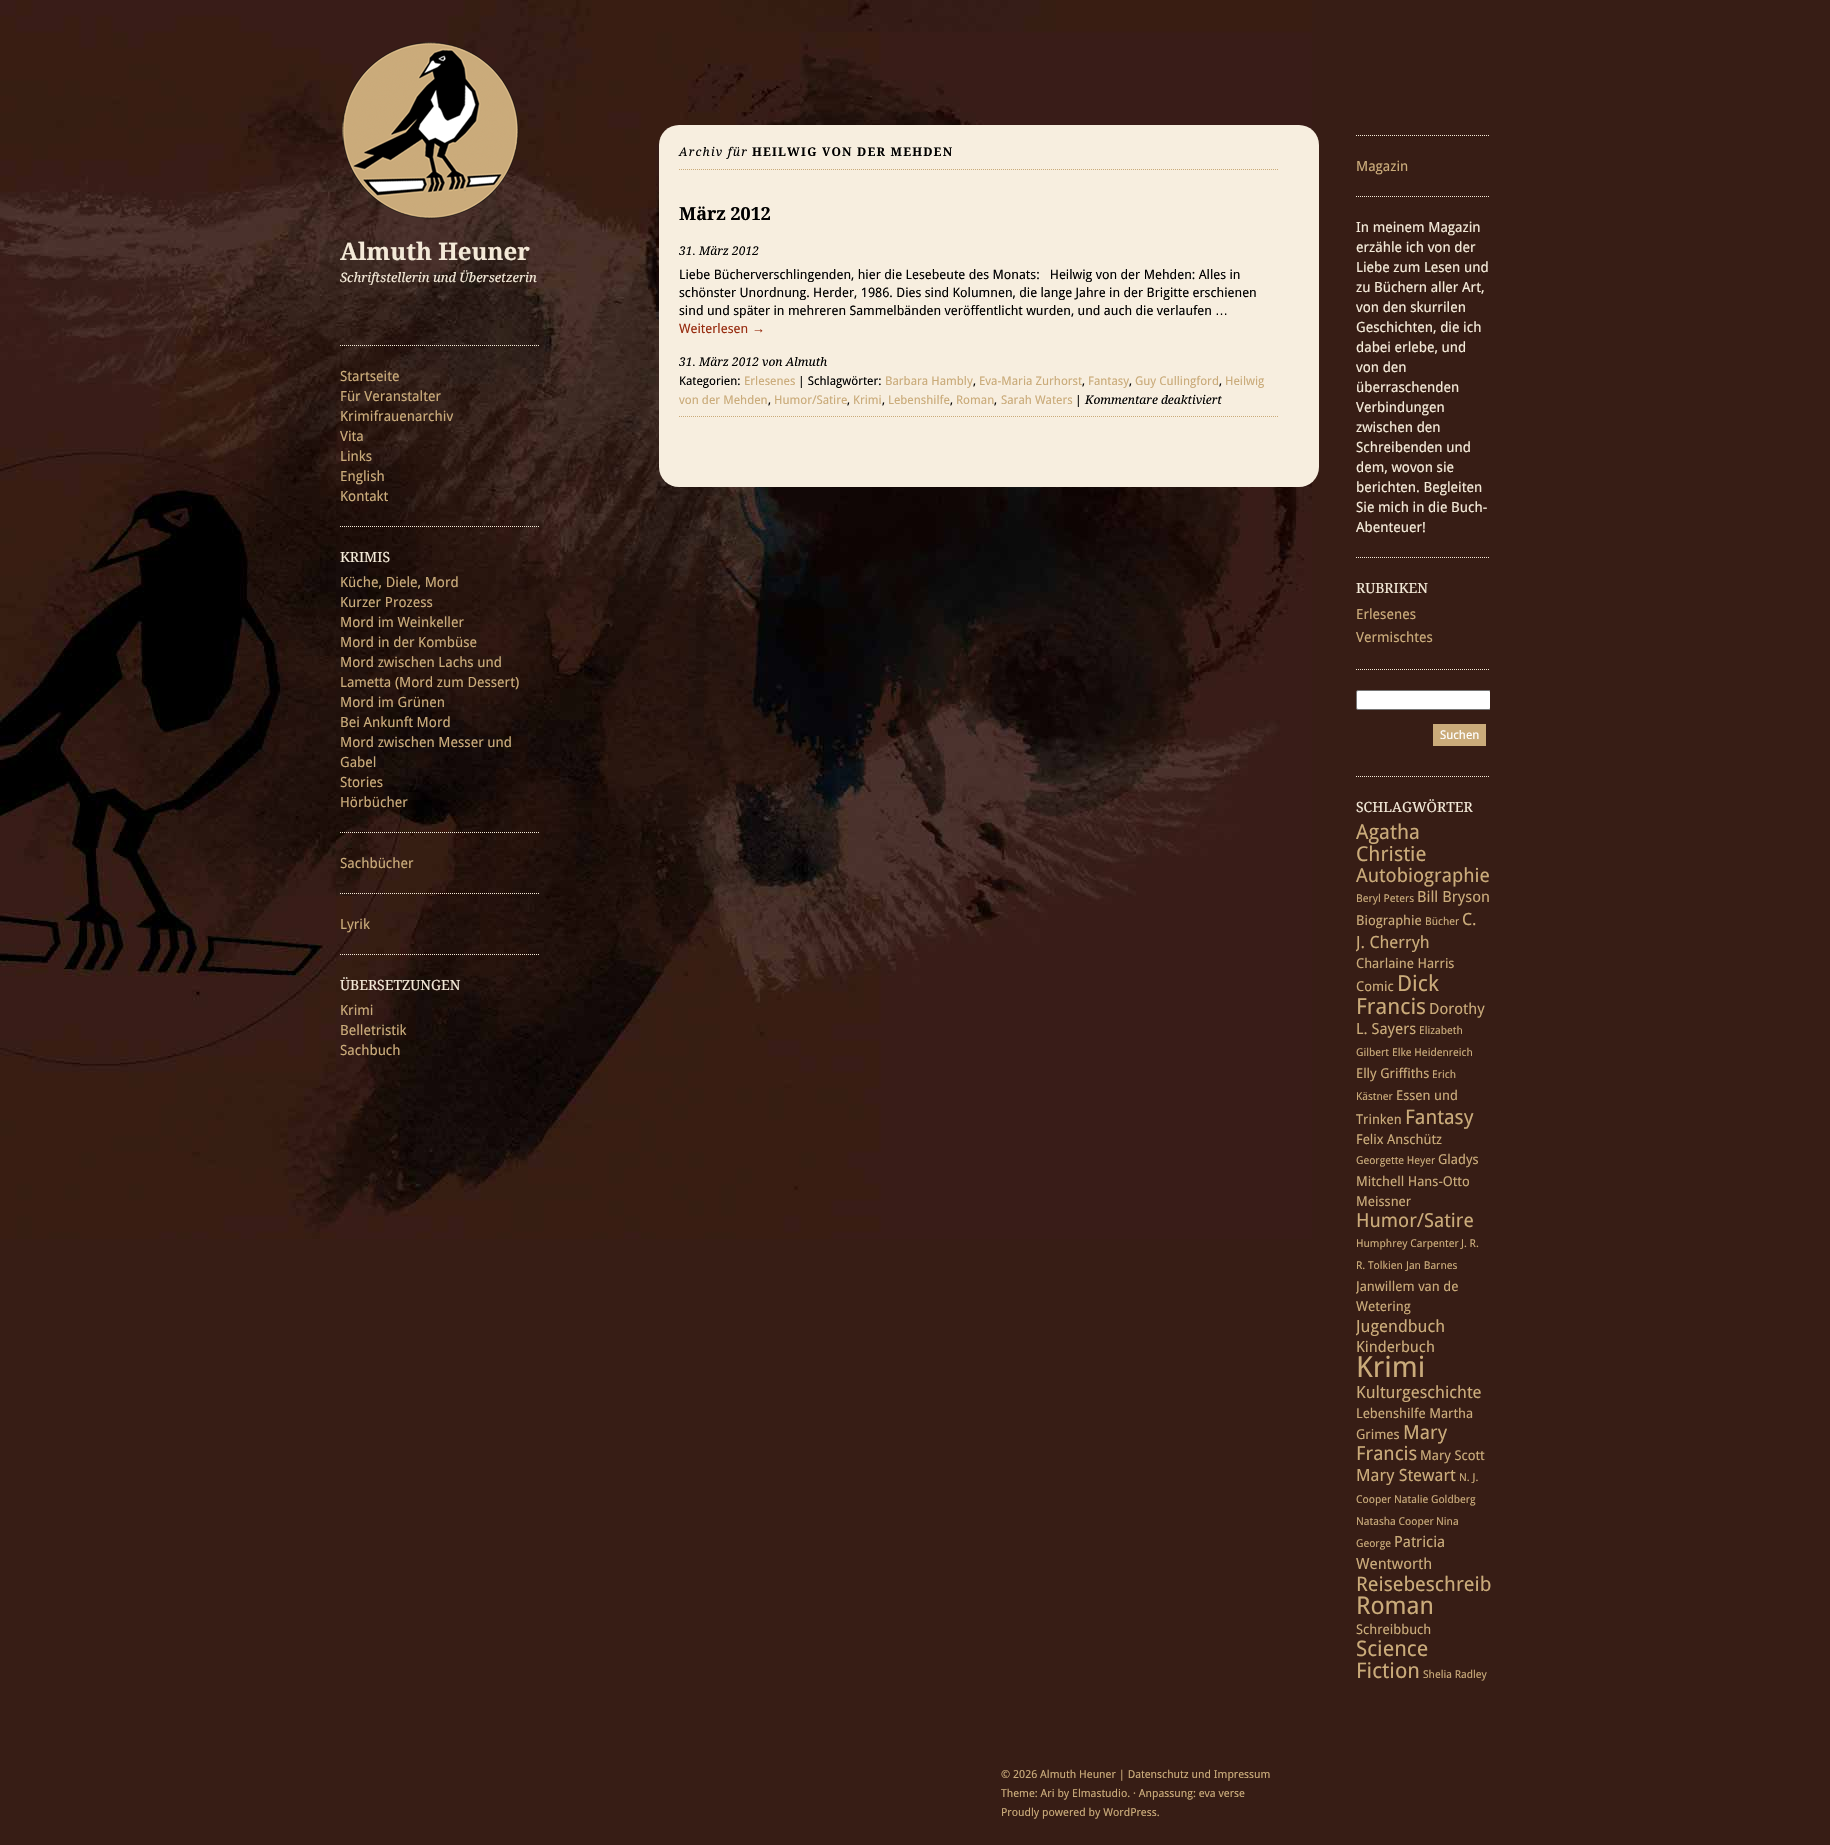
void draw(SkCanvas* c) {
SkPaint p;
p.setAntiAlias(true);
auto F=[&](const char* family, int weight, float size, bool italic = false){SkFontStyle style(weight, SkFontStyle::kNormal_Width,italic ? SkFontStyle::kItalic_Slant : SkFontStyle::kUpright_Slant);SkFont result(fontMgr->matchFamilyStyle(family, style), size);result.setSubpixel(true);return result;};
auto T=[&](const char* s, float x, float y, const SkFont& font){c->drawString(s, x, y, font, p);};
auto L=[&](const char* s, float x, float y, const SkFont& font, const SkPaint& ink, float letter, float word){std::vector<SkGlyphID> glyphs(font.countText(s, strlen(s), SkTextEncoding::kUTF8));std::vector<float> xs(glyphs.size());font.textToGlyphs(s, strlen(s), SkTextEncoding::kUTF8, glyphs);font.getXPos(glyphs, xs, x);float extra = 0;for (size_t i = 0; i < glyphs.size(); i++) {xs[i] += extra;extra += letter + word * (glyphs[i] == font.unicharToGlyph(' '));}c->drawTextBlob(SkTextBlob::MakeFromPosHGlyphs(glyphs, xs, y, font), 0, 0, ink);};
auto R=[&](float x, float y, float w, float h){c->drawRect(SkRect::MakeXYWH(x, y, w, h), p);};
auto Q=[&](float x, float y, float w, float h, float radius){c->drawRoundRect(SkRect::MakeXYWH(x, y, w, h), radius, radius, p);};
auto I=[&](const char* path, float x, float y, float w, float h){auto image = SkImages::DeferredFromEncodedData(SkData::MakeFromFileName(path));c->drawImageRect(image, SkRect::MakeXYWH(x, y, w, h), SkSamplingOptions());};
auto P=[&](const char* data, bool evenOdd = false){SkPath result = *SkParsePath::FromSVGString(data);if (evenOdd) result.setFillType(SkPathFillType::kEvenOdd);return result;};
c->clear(0xff371d15);
I("1.png",0,0,1312,1239);
I("2.png",342,42,178,178);
auto f1 = F("Droid Serif",700,24);
p.setColor(0xfff4ead8);
T("Almuth Heuner",340,260,f1);
auto f2 = F("Droid Serif",400,13,true);
T("Schriftstellerin und Übersetzerin",340,282,f2);
p.setStroke(true);
p.setStrokeWidth(1);
p.setPathEffect(SkDashPathEffect::Make({{1,1}}, 0));
c->drawPath(P("M340 345.5h200"),p);
p.setPathEffect(nullptr);
auto f3 = F("Droid Sans",400,14);
p.setStroke(false);
p.setColor(0xffcaab7a);
T("Startseite",340,381,f3);
T("Für Veranstalter",340,401,f3);
T("Krimifrauenarchiv",340,421,f3);
T("Vita",340,441,f3);
T("Links",340,461,f3);
T("English",340,481,f3);
T("Kontakt",340,501,f3);
p.setStroke(true);
p.setColor(0xfff4ead8);
p.setPathEffect(SkDashPathEffect::Make({{1,1}}, 0));
c->drawPath(P("M340 526.5h200"),p);
p.setPathEffect(nullptr);
auto f4 = F("Droid Serif",400,14);
p.setStroke(false);
T("KRIMIS",340,562,f4);
p.setColor(0xffcaab7a);
T("Küche, Diele, Mord",340,587,f3);
T("Kurzer Prozess",340,607,f3);
T("Mord im Weinkeller",340,627,f3);
T("Mord in der Kombüse",340,647,f3);
T("Mord zwischen Lachs und",340,667,f3);
T("Lametta (Mord zum Dessert)",340,687,f3);
T("Mord im Grünen",340,707,f3);
T("Bei Ankunft Mord",340,727,f3);
T("Mord zwischen Messer und",340,747,f3);
T("Gabel",340,767,f3);
T("Stories",340,787,f3);
T("Hörbücher",340,807,f3);
p.setStroke(true);
p.setColor(0xfff4ead8);
p.setPathEffect(SkDashPathEffect::Make({{1,1}}, 0));
c->drawPath(P("M340 832.5h200"),p);
p.setPathEffect(nullptr);
p.setStroke(false);
p.setColor(0xffcaab7a);
T("Sachbücher",340,868,f3);
p.setStroke(true);
p.setColor(0xfff4ead8);
p.setPathEffect(SkDashPathEffect::Make({{1,1}}, 0));
c->drawPath(P("M340 893.5h200"),p);
p.setPathEffect(nullptr);
p.setStroke(false);
p.setColor(0xffcaab7a);
T("Lyrik",340,929,f3);
p.setStroke(true);
p.setColor(0xfff4ead8);
p.setPathEffect(SkDashPathEffect::Make({{1,1}}, 0));
c->drawPath(P("M340 954.5h200"),p);
p.setPathEffect(nullptr);
p.setStroke(false);
T("ÜBERSETZUNGEN",340,990,f4);
p.setColor(0xffcaab7a);
T("Krimi",340,1015,f3);
T("Belletristik",340,1035,f3);
T("Sachbuch",340,1055,f3);
p.setColor(0xfff7eedf);
Q(659,125,660,362,20);
p.setStroke(true);
p.setColor(0xffcaab7a);
p.setPathEffect(SkDashPathEffect::Make({{1,1}}, 0));
c->drawPath(P("M679 169.5h600"),p);
p.setPathEffect(nullptr);
auto f5 = F("Droid Serif",400,12,true);
p.setStroke(false);
p.setColor(0xff000000);
L("Archiv für",679,156,f5,p,1.2,0);
auto f6 = F("Droid Serif",700,12);
L("HEILWIG VON DER MEHDEN",752,156,f6,p,1.2,0);
p.setStroke(true);
p.setColor(0xffcaab7a);
p.setPathEffect(SkDashPathEffect::Make({{1,1}}, 0));
c->drawPath(P("M679 416.5h600"),p);
p.setPathEffect(nullptr);
auto f7 = F("Droid Serif",700,18);
p.setStroke(false);
p.setColor(0xff000000);
T("März 2012",679,220,f7);
T("31. März 2012",679,255,f5);
auto f8 = F("Droid Sans",400,13);
T("Liebe Bücherverschlingenden, hier die Lesebeute des Monats:   Heilwig von der Mehden: Alles in",679,279,f8);
T("schönster Unordnung. Herder, 1986. Dies sind Kolumnen, die lange Jahre in der Brigitte erschienen",679,297,f8);
T("sind und später in mehreren Sammelbänden veröffentlicht wurden, und auch die verlaufen",679,315,f8);
auto f9 = F("Liberation Sans",400,13);
T("…",1215,315,f9);
p.setColor(0xff972c10);
T("Weiterlesen",679,333,f8);
T("→",752,333,f9);
p.setColor(0xff000000);
T("31. März 2012 von Almuth",679,366,f5);
auto f10 = F("Droid Sans",400,12);
T("Kategorien:",679,385,f10);
p.setColor(0xffcaab7a);
T("Erlesenes",744,385,f10);
p.setColor(0xff000000);
T("| Schlagwörter:",798,385,f10);
p.setColor(0xffcaab7a);
T("Barbara Hambly",885,385,f10);
p.setColor(0xff000000);
T(",",973,385,f10);
p.setColor(0xffcaab7a);
T("Eva-Maria Zurhorst",979,385,f10);
p.setColor(0xff000000);
T(",",1082,385,f10);
p.setColor(0xffcaab7a);
T("Fantasy",1088,385,f10);
p.setColor(0xff000000);
T(",",1129,385,f10);
p.setColor(0xffcaab7a);
T("Guy Cullingford",1135,385,f10);
p.setColor(0xff000000);
T(",",1219,385,f10);
p.setColor(0xffcaab7a);
T("Heilwig",1225,385,f10);
T("von der Mehden",679,404,f10);
p.setColor(0xff000000);
T(",",768,404,f10);
p.setColor(0xffcaab7a);
T("Humor/Satire",774,404,f10);
p.setColor(0xff000000);
T(",",847,404,f10);
p.setColor(0xffcaab7a);
T("Krimi",853,404,f10);
p.setColor(0xff000000);
T(",",882,404,f10);
p.setColor(0xffcaab7a);
T("Lebenshilfe",888,404,f10);
p.setColor(0xff000000);
T(",",950,404,f10);
p.setColor(0xffcaab7a);
T("Roman",956,404,f10);
p.setColor(0xff000000);
T(",",994,404,f10);
p.setColor(0xffcaab7a);
T("Sarah Waters",1001,404,f10);
p.setColor(0xff000000);
T("|",1075,404,f10);
T("Kommentare deaktiviert",1085,404,f5);
p.setStroke(true);
p.setColor(0xfff4ead8);
p.setPathEffect(SkDashPathEffect::Make({{1,1}}, 0));
c->drawPath(P("M1356 135.5h134"),p);
p.setPathEffect(nullptr);
p.setStroke(false);
p.setColor(0xffcaab7a);
T("Magazin",1356,171,f3);
p.setStroke(true);
p.setColor(0xfff4ead8);
p.setPathEffect(SkDashPathEffect::Make({{1,1}}, 0));
c->drawPath(P("M1356 196.5h134"),p);
p.setPathEffect(nullptr);
p.setStroke(false);
T("In meinem Magazin",1356,232,f3);
T("erzähle ich von der",1356,252,f3);
T("Liebe zum Lesen und",1356,272,f3);
T("zu Büchern aller Art,",1356,292,f3);
T("von den skurrilen",1356,312,f3);
T("Geschichten, die ich",1356,332,f3);
T("dabei erlebe, und",1356,352,f3);
T("von den",1356,372,f3);
T("überraschenden",1356,392,f3);
T("Verbindungen",1356,412,f3);
T("zwischen den",1356,432,f3);
T("Schreibenden und",1356,452,f3);
T("dem, wovon sie",1356,472,f3);
T("berichten. Begleiten",1356,492,f3);
T("Sie mich in die Buch-",1356,512,f3);
T("Abenteuer!",1356,532,f3);
p.setStroke(true);
p.setPathEffect(SkDashPathEffect::Make({{1,1}}, 0));
c->drawPath(P("M1356 557.5h134"),p);
p.setPathEffect(nullptr);
p.setStroke(false);
T("RUBRIKEN",1356,593,f4);
p.setColor(0xffcaab7a);
T("Erlesenes",1356,619,f3);
T("Vermischtes",1356,642,f3);
p.setStroke(true);
p.setColor(0xfff4ead8);
p.setPathEffect(SkDashPathEffect::Make({{1,1}}, 0));
c->drawPath(P("M1356 669.5h134"),p);
p.setPathEffect(nullptr);
c->save();
c->clipRect(SkRect::MakeXYWH(1356,670,134,96));
p.setStroke(false);
p.setColor(0xffffffff);
c->drawRoundRect(SkRect::MakeXYWH(1356.5,690.5,134,19),1.5,1.5,p);
p.setStroke(true);
p.setColor(0xff767676);
c->drawRoundRect(SkRect::MakeXYWH(1356.5,690.5,134,19),1.5,1.5,p);
c->restore();
p.setStroke(false);
p.setColor(0xffcaab7a);
R(1433,724,53,22);
p.setColor(0xffffffff);
T("Suchen",1440,739,f10);
p.setStroke(true);
p.setColor(0xfff4ead8);
p.setPathEffect(SkDashPathEffect::Make({{1,1}}, 0));
c->drawPath(P("M1356 776.5h134"),p);
p.setPathEffect(nullptr);
p.setStroke(false);
T("SCHLAGWÖRTER",1356,812,f4);
auto f11 = F("Droid Sans",400,20.5);
p.setColor(0xffcaab7a);
T("Agatha",1356,839,f11);
T("Christie",1356,861,f11);
auto f12 = F("Droid Sans",400,19.25);
T("Autobiographie",1356,882,f12);
auto f13 = F("Droid Sans",400,10.75);
T("Beryl Peters",1356,902,f13);
auto f14 = F("Droid Sans",400,15.25);
T("Bill Bryson",1417,902,f14);
auto f15 = F("Droid Sans",400,13.5);
T("Biographie",1356,925,f15);
T("Bücher",1425,925,f13);
auto f16 = F("Droid Sans",400,16.75);
T("C.",1462,925,f16);
c->save();
c->clipRect(SkRect::MakeXYWH(1356,777,134,918));
T("J. Cherryh",1356,948,f16);
c->restore();
T("Charlaine Harris",1356,968,f15);
T("Comic",1356,991,f15);
auto f17 = F("Droid Sans",400,22);
T("Dick",1397,991,f17);
T("Francis",1356,1014,f17);
T("Dorothy",1429,1014,f14);
T("L. Sayers",1356,1034,f14);
T("Elizabeth",1419,1034,f13);
T("Gilbert",1356,1056,f13);
T("Elke Heidenreich",1392,1056,f13);
T("Elly Griffiths",1356,1078,f15);
T("Erich",1432,1078,f13);
T("Kästner",1356,1100,f13);
T("Essen und",1396,1100,f15);
T("Trinken",1356,1124,f15);
auto f18 = F("Droid Sans",400,20);
T("Fantasy",1405,1124,f18);
T("Felix Anschütz",1356,1144,f15);
T("Georgette Heyer",1356,1164,f13);
T("Gladys",1438,1164,f15);
T("Mitchell Hans-Otto",1356,1186,f15);
T("Meissner",1356,1206,f15);
T("Humor/Satire",1356,1227,f12);
T("Humphrey Carpenter",1356,1247,f13);
T("J. R.",1461,1247,f13);
T("R. Tolkien",1356,1269,f13);
T("Jan Barnes",1406,1269,f13);
c->save();
c->clipRect(SkRect::MakeXYWH(1356,777,134,918));
T("Janwillem van de",1356,1291,f15);
c->restore();
T("Wetering",1356,1311,f15);
c->save();
c->clipRect(SkRect::MakeXYWH(1356,777,134,918));
T("Jugendbuch",1356,1332,f16);
c->restore();
T("Kinderbuch",1356,1352,f14);
auto f19 = F("Droid Sans",400,29);
T("Krimi",1356,1377,f19);
T("Kulturgeschichte",1356,1398,f16);
T("Lebenshilfe Martha",1356,1418,f15);
T("Grimes",1356,1439,f15);
T("Mary",1403,1439,f12);
T("Francis",1356,1460,f12);
T("Mary Scott",1420,1460,f15);
T("Mary Stewart",1356,1481,f16);
T("N. J.",1459,1481,f13);
T("Cooper",1356,1503,f13);
T("Natalie Goldberg",1394,1503,f13);
T("Natasha Cooper",1356,1525,f13);
T("Nina",1436,1525,f13);
T("George",1356,1547,f13);
T("Patricia",1394,1547,f14);
T("Wentworth",1356,1569,f14);
T("Reisebeschreib",1356,1591,f18);
auto f20 = F("Droid Sans",400,24.5);
T("Roman",1356,1614,f20);
T("Schreibbuch",1356,1634,f15);
auto f21 = F("Droid Sans",400,21.5);
T("Science",1356,1656,f21);
T("Fiction",1356,1678,f21);
T("Shelia Radley",1423,1678,f13);
auto f22 = F("Droid Sans",400,11);
T("© 2026 Almuth Heuner | Datenschutz und Impressum",1001,1778,f22);
T("Theme: Ari by Elmastudio. · Anpassung: eva verse",1001,1797,f22);
T("Proudly powered by WordPress.",1001,1816,f22);
}
